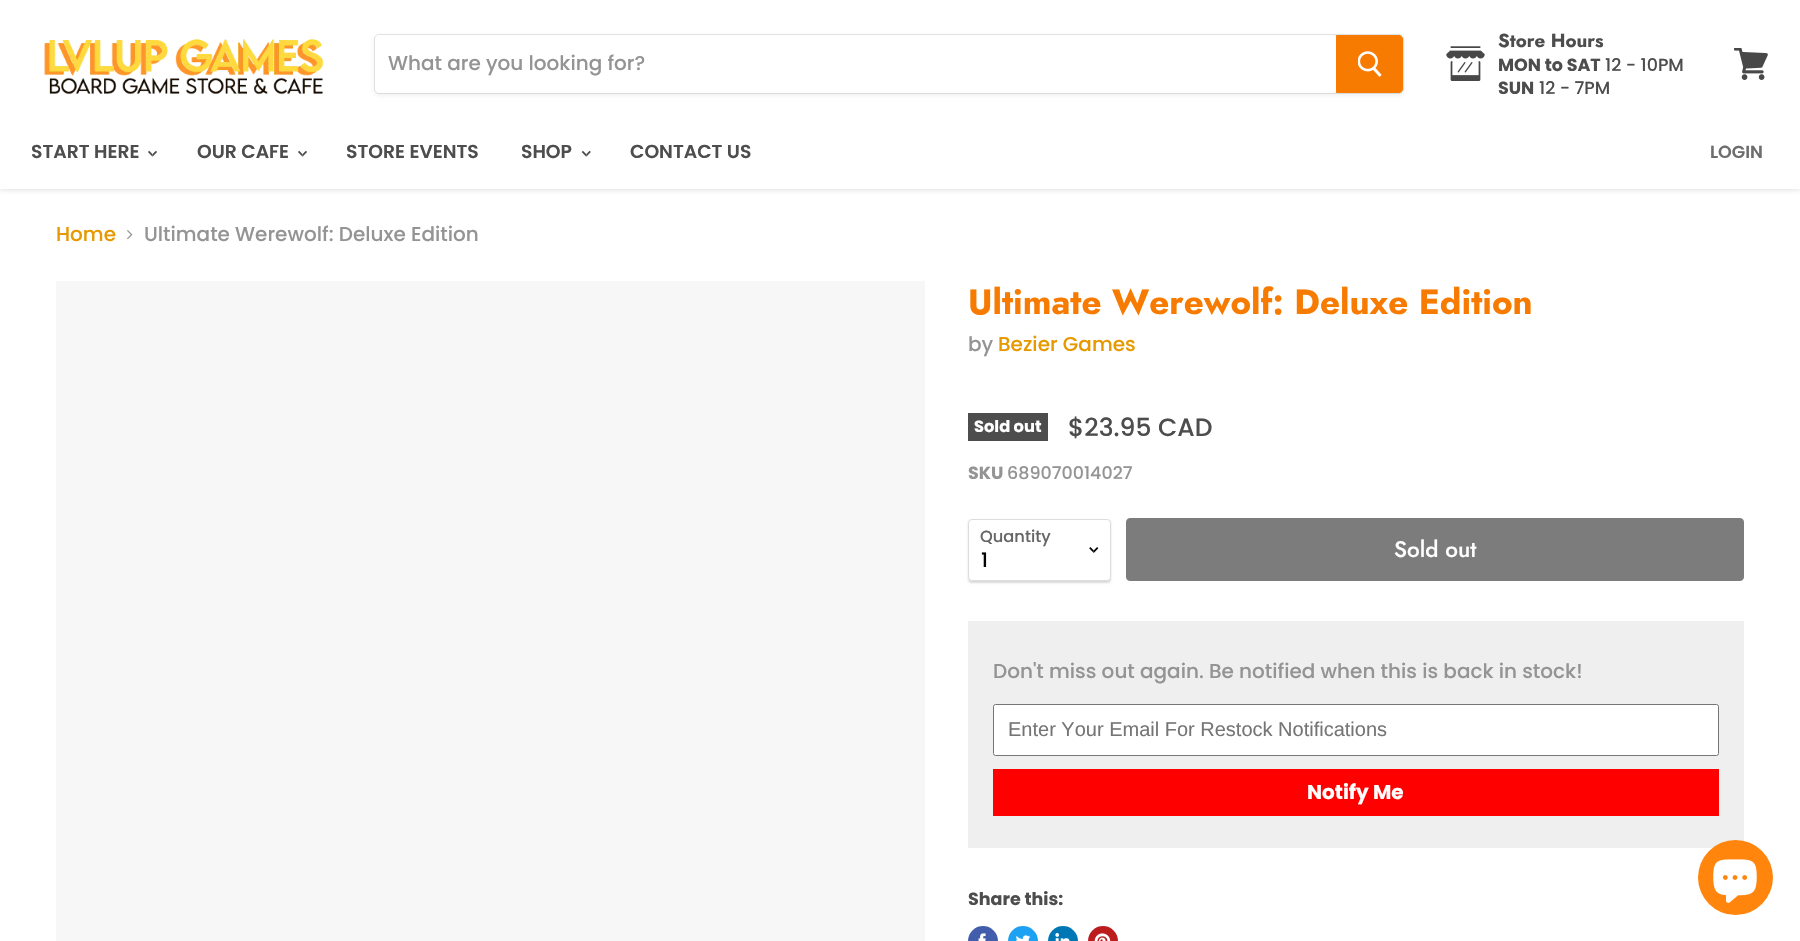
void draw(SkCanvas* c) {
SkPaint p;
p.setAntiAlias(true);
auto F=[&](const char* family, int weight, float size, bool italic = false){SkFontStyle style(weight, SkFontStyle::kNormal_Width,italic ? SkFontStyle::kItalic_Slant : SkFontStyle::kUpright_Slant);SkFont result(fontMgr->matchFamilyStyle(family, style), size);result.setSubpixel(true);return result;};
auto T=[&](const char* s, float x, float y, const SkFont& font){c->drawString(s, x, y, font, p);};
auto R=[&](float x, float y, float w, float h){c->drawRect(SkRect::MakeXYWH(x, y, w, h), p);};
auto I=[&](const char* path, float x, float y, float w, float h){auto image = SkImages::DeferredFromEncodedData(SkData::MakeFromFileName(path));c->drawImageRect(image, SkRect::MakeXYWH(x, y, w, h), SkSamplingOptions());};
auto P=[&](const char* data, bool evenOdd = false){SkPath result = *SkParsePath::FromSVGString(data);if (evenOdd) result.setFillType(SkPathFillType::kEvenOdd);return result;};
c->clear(0xffffffff);
p.setColor(0x407f7f7f);
p.setMaskFilter(SkMaskFilter::MakeBlur(kNormal_SkBlurStyle, 2.5));
c->drawRect(SkRect::MakeXYWH(0,1,1800,189),p);
p.setMaskFilter(nullptr);
p.setColor(0xffffffff);
R(0,0,1800,189);
I("1.png",44,39,280,56);
p.setColor(0x1c7f7f7f);
p.setMaskFilter(SkMaskFilter::MakeBlur(kNormal_SkBlurStyle, 2));
c->drawRoundRect(SkRect::MakeXYWH(374,36,1030,60),5,5,p);
p.setMaskFilter(nullptr);
p.setStroke(true);
p.setStrokeWidth(1);
p.setColor(0x337f7f7f);
c->drawRoundRect(SkRect::MakeXYWH(374.5,34.5,1029,59),4.5,4.5,p);
p.setStroke(false);
p.setColor(0xffffffff);
c->drawPath(P("M379 35h957v58h-957c-2 0-4-2-4-4v-50c0-2 2-4 4-4z"),p);
auto f1 = F("Poppins",500,20);
p.setColor(0xff949494);
T("What are you looking for?",388,70,f1);
p.setColor(0xfff77b00);
c->drawPath(P("M1336.5 35.5h62.5c2 0 3.5 1.5 3.5 3.5v50c0 2-1.5 3.5-3.5 3.5h-62.5z"),p);
p.setStroke(true);
c->drawPath(P("M1336.5 35.5h62.5c2 0 3.5 1.5 3.5 3.5v50c0 2-1.5 3.5-3.5 3.5h-62.5z"),p);
I("2.png",1358,51,24,26);
I("3.png",1446,46,39,35);
auto f2 = F("Jost",700,18.75);
p.setStroke(false);
p.setColor(0xff4d4d4d);
T("Store Hours",1498,47,f2);
auto f3 = F("Poppins",700,17.5);
T("MON to SAT",1498,71,f3);
auto f4 = F("Poppins",500,17.5);
T("12 - 10PM",1605,71,f4);
T("SUN",1498,94,f3);
T("12 - 7PM",1539,94,f4);
I("4.png",1734,48,34,32);
auto f5 = F("Poppins",600,18.75);
T("START HERE",31,158,f5);
I("5.png",148,150,9,7);
T("OUR CAFE",197,158,f5);
I("5.png",298,150,9,7);
T("STORE EVENTS",346,158,f5);
T("SHOP",521,158,f5);
I("6.png",581,150,10,7);
T("CONTACT US",630,158,f5);
auto f6 = F("Poppins",600,17.5);
p.setColor(0xff6d6d6d);
T("LOGIN",1710,158,f6);
p.setColor(0xffe69900);
T("Home",56,241,f1);
I("7.png",127,230,6,9);
p.setColor(0xff949494);
T("Ultimate Werewolf: Deluxe Edition",144,241,f1);
p.setColor(0xfff7f7f7);
R(56,281,869,660);
auto f7 = F("Jost",700,35);
p.setColor(0xfff77b00);
T("Ultimate Werewolf: Deluxe Edition",968,314,f7);
p.setColor(0xff949494);
T("by",968,351,f1);
p.setColor(0xffe69900);
T("Bezier Games",998,351,f1);
p.setColor(0xff4d4d4d);
R(968,413,80,28);
auto f8 = F("Poppins",700,16.25);
p.setColor(0xffffffff);
T("Sold out",974,432,f8);
auto f9 = F("Poppins",500,25);
p.setColor(0xff4d4d4d);
T("$23.95 CAD",1068,436,f9);
p.setColor(0xff949494);
T("SKU",968,479,f3);
T("689070014027",1007,479,f4);
c->save();
c->clipPath(P("M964 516h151v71h-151zm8 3h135c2 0 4 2 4 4v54c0 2-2 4-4 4h-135c-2 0-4-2-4-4v-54c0-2 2-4 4-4z",true),true);
p.setColor(0x26000000);
p.setMaskFilter(SkMaskFilter::MakeBlur(kNormal_SkBlurStyle, 1));
c->drawRoundRect(SkRect::MakeXYWH(968,520,143,63),4,4,p);
p.setMaskFilter(nullptr);
c->restore();
p.setStroke(true);
p.setColor(0xffdddddd);
c->drawRoundRect(SkRect::MakeXYWH(968.5,519.5,142,61),3.5,3.5,p);
auto f10 = F("Poppins",500,16.25);
p.setStroke(false);
p.setColor(0xff666666);
T("Quantity",980,542,f10);
I("8.png",1089,547,10,6);
p.setColor(0xff000000);
T("1",981,567,f1);
p.setColor(0xff7c7c7c);
c->drawRoundRect(SkRect::MakeXYWH(1126.5,518.5,617,62),3.5,3.5,p);
p.setStroke(true);
c->drawRoundRect(SkRect::MakeXYWH(1126.5,518.5,617,62),3.5,3.5,p);
auto f11 = F("Jost",500,22.5);
p.setStroke(false);
p.setColor(0xffffffff);
T("Sold out",1394,557,f11);
p.setColor(0xffefefef);
R(968,621,776,227);
p.setColor(0xff949494);
T("Don't miss out again. Be notified when this is back in stock!",993,678,f1);
p.setColor(0xffffffff);
c->drawRoundRect(SkRect::MakeXYWH(993.5,704.5,725,51),2,2,p);
p.setStroke(true);
p.setColor(0xff767676);
c->drawRoundRect(SkRect::MakeXYWH(993.5,704.5,725,51),2,2,p);
auto f12 = F("Liberation Sans",400,20);
p.setStroke(false);
p.setColor(0xff757575);
T("Enter Your Email For Restock Notifications",1008,736,f12);
p.setColor(0xffff0000);
R(993,769,726,47);
auto f13 = F("Poppins",700,20);
p.setColor(0xffffffff);
T("Notify Me",1307,799,f13);
p.setColor(0xff4d4d4d);
T("Share this:",968,905,f3);
p.setColor(0xff425dab);
c->drawCircle(983,941,15,p);
I("9.png",978,933,8,8);
p.setColor(0xff1da1f2);
c->drawCircle(1023,941,15,p);
I("10.png",1016,935,15,6);
p.setColor(0xff0077b5);
c->drawCircle(1063,941,15,p);
I("11.png",1055,933,15,8);
p.setColor(0xffbd1c1c);
c->drawCircle(1103,941,15,p);
I("12.png",1094,933,17,8);
p.setColor(0xffff850d);
c->drawCircle(1735.5,877.5,37.5,p);
I("13.png",1713,859,44,44);
}
